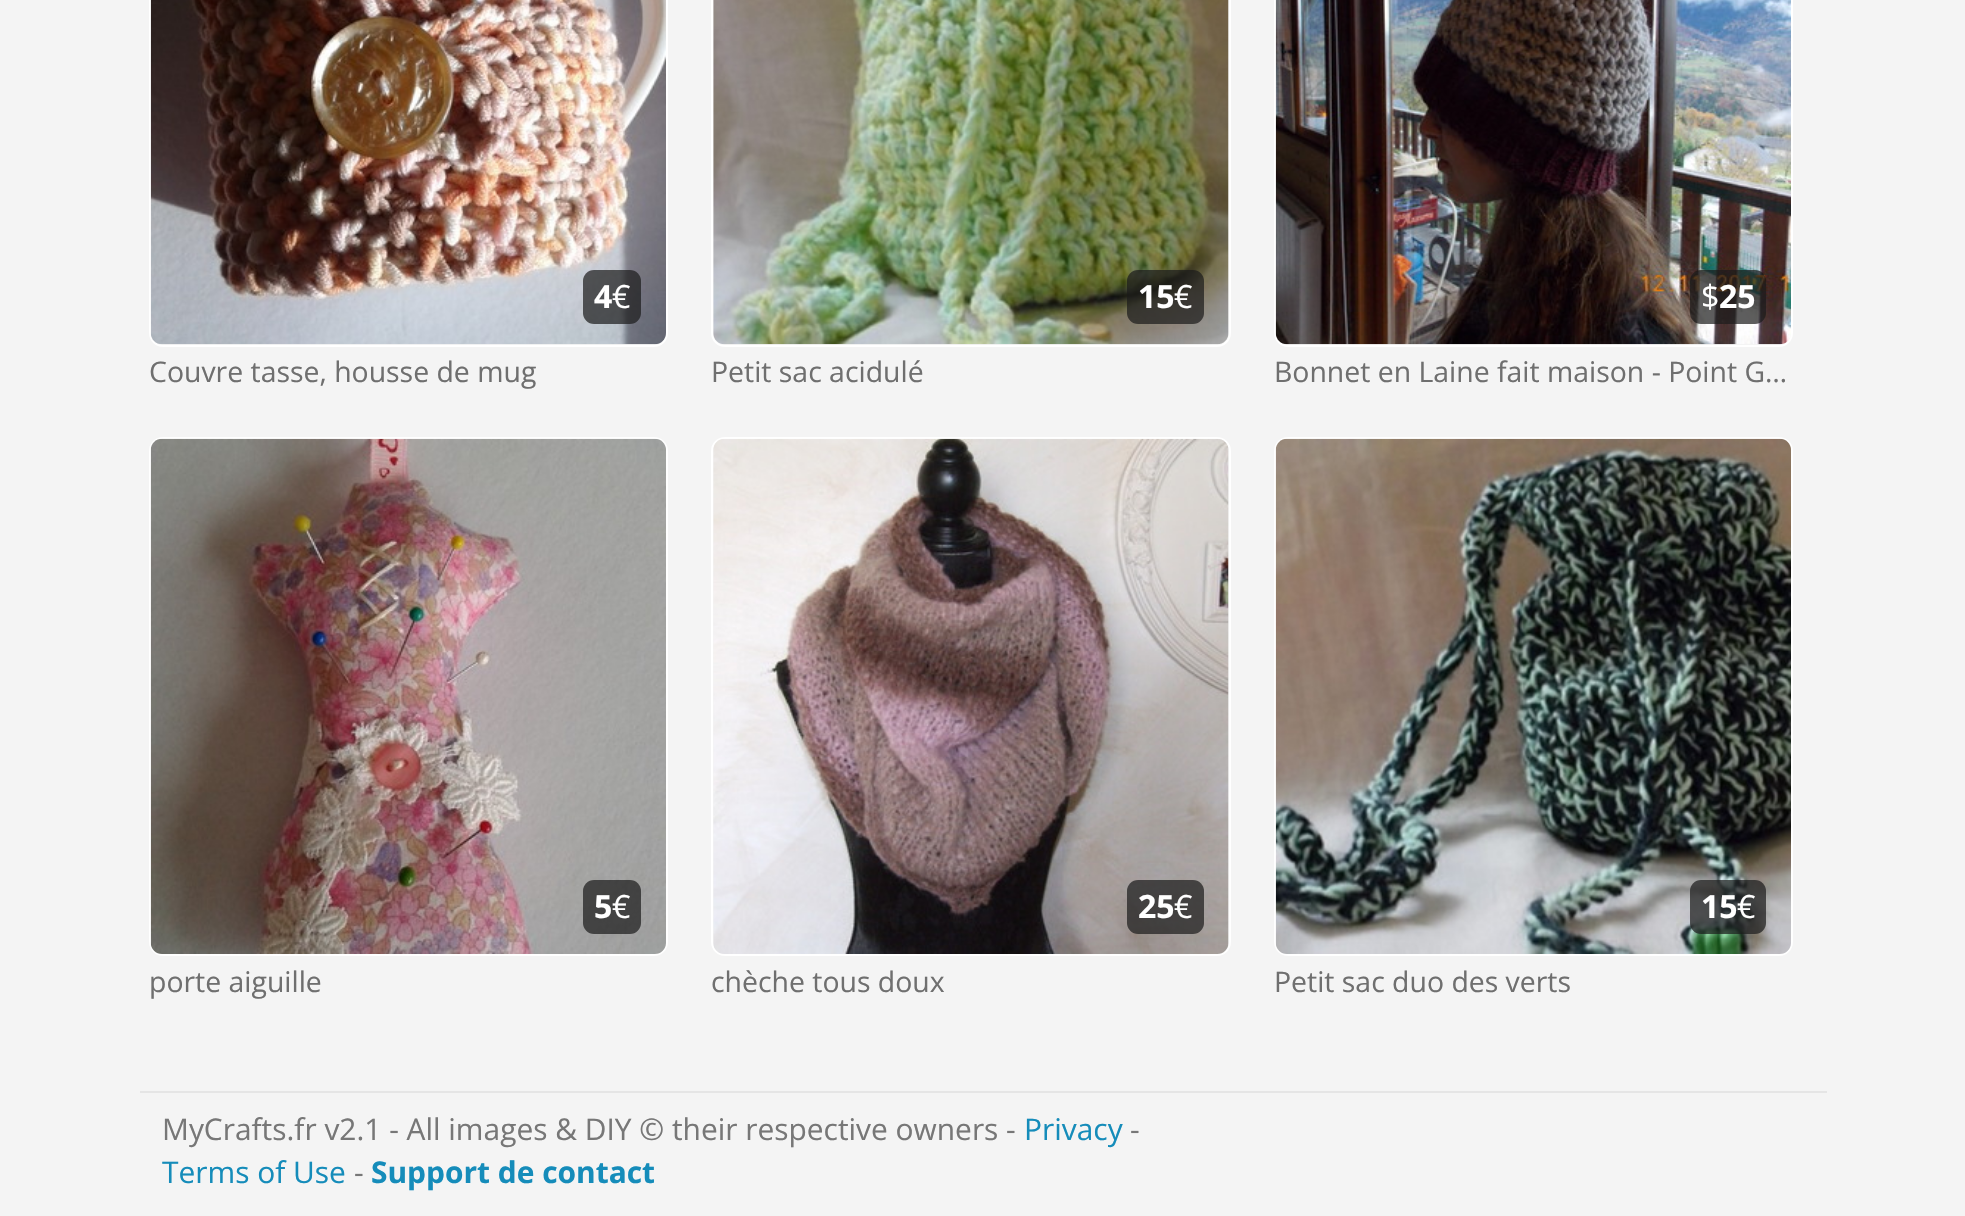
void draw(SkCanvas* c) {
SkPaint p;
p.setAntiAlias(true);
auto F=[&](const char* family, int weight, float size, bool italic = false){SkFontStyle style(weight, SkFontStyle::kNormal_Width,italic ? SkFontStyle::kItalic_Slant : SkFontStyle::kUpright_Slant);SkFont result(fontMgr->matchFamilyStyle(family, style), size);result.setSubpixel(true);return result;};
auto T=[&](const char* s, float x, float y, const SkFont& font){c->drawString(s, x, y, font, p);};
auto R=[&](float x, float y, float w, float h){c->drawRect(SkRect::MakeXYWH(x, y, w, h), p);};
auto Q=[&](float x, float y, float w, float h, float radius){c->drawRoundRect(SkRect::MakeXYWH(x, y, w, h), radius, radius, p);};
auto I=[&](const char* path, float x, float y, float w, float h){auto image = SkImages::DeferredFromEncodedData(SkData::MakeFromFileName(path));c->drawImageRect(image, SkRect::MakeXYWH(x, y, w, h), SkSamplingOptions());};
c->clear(0xfff4f4f4);
p.setStroke(true);
p.setStrokeWidth(2);
p.setColor(0xffffffff);
c->drawRoundRect(SkRect::MakeXYWH(150,-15,517,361),13,13,p);
I("1.png",150,0,516,345);
p.setStroke(false);
p.setColor(0xb3191919);
Q(583,270,58,54,11);
auto f1 = F("Open Sans",700,32);
p.setColor(0xffffffff);
T("4",594,308,f1);
auto f2 = F("Open Sans",400,32);
T("€",612,308,f2);
auto f3 = F("Open Sans",400,28.4);
p.setColor(0xff6f6f6f);
T("Couvre tasse, housse de mug",149,382,f3);
p.setStroke(true);
p.setColor(0xffffffff);
c->drawRoundRect(SkRect::MakeXYWH(712,-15,518,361),13,13,p);
I("2.png",713,0,516,345);
p.setStroke(false);
p.setColor(0xb3191919);
Q(1127,270,77,54,11);
p.setColor(0xffffffff);
T("15",1138,308,f1);
T("€",1174,308,f2);
p.setColor(0xff6f6f6f);
T("Petit sac acidulé",711,382,f3);
p.setStroke(true);
p.setColor(0xffffffff);
c->drawRoundRect(SkRect::MakeXYWH(1275,-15,517,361),13,13,p);
I("3.png",1275,0,516,345);
p.setStroke(false);
p.setColor(0xb3191919);
Q(1690,270,76,54,11);
p.setColor(0xffffffff);
T("$",1701,308,f2);
T("25",1719,308,f1);
p.setColor(0xff6f6f6f);
T("Bonnet en Laine fait maison - Point G…",1274,382,f3);
p.setStroke(true);
p.setColor(0xffffffff);
c->drawRoundRect(SkRect::MakeXYWH(150,438,517,517),13,13,p);
I("4.png",150,438,516,516);
p.setStroke(false);
p.setColor(0xb3191919);
Q(583,880,58,54,11);
p.setColor(0xffffffff);
T("5",594,918,f1);
T("€",612,918,f2);
p.setColor(0xff6f6f6f);
T("porte aiguille",149,992,f3);
p.setStroke(true);
p.setColor(0xffffffff);
c->drawRoundRect(SkRect::MakeXYWH(712,438,518,517),13,13,p);
I("5.png",713,438,516,516);
p.setStroke(false);
p.setColor(0xb3191919);
Q(1127,880,77,54,11);
p.setColor(0xffffffff);
T("25",1138,918,f1);
T("€",1174,918,f2);
p.setColor(0xff6f6f6f);
T("chèche tous doux",711,992,f3);
p.setStroke(true);
p.setColor(0xffffffff);
c->drawRoundRect(SkRect::MakeXYWH(1275,438,517,517),13,13,p);
I("6.png",1275,438,516,516);
p.setStroke(false);
p.setColor(0xb3191919);
Q(1690,880,76,54,11);
p.setColor(0xffffffff);
T("15",1701,918,f1);
T("€",1737,918,f2);
p.setColor(0xff6f6f6f);
T("Petit sac duo des verts",1274,992,f3);
p.setColor(0xffe5e5e5);
R(140,1091,1687,2);
auto f4 = F("Open Sans",400,29.9);
p.setColor(0xff777777);
T("MyCrafts.fr v2.1 - All images & DIY © their respective owners -",162,1140,f4);
p.setColor(0xff158cba);
T("Privacy",1024,1140,f4);
p.setColor(0xff777777);
T("-",1130,1140,f4);
p.setColor(0xff158cba);
T("Terms of Use",162,1183,f4);
p.setColor(0xff777777);
T("-",354,1183,f4);
auto f5 = F("Open Sans",700,29.9);
p.setColor(0xff158cba);
T("Support de contact",371,1183,f5);
}
